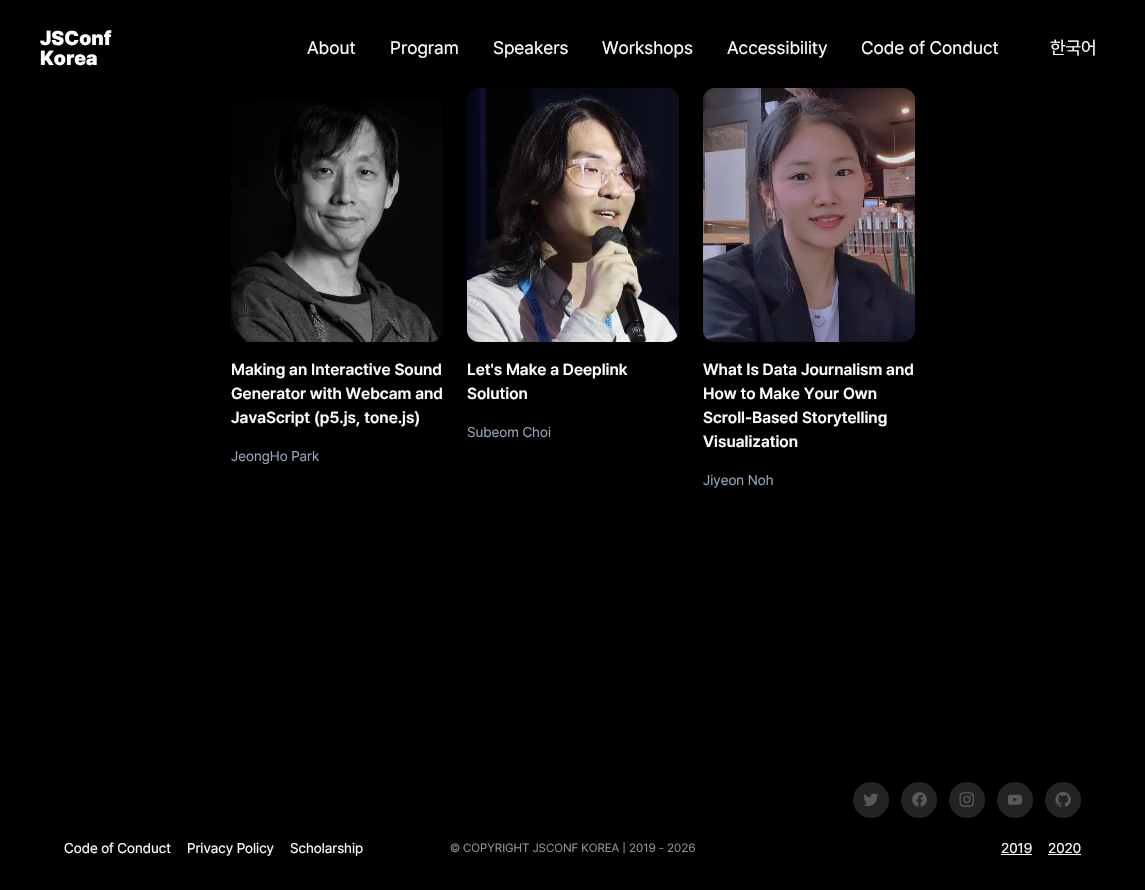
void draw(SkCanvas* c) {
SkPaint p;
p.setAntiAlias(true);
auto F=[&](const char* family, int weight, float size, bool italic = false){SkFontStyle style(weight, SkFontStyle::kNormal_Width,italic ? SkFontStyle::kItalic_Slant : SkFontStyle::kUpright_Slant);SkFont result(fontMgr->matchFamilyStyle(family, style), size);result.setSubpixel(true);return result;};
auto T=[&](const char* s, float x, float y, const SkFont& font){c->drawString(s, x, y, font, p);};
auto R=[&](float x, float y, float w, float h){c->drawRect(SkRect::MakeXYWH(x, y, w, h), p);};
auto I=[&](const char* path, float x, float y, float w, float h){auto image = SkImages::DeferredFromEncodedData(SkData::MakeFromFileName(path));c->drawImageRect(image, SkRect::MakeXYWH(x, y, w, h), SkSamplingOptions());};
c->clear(0xff000000);
I("2.png",467,88,212,254);
I("3.png",703,88,212,254);
{
const SkColor colors[] = {0xff000000,0x00000000};
const float stops[] = {0,1};
const SkPoint ends[] = {{573,0}, {573,96}};
p.setShader(SkGradientShader::MakeLinear(ends, colors, stops, 2, SkTileMode::kClamp));
p.setAlpha(255);
}
R(480,88,431,6);
auto f1 = F("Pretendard",900,20);
p.setShader(nullptr);
p.setColor(0xffffffff);
T("JSConf",40,45,f1);
T("Korea",40,65,f1);
auto f2 = F("Pretendard",400,18);
T("About",307,54,f2);
T("Program",390,54,f2);
T("Speakers",493,54,f2);
T("Workshops",602,54,f2);
T("Accessibility",727,54,f2);
T("Code of Conduct",861,54,f2);
T("한국어",1050,54,f2);
I("1.png",231,101,212,241);
auto f3 = F("Pretendard",600,16);
T("Making an Interactive Sound",231,375,f3);
T("Generator with Webcam and",231,399,f3);
T("JavaScript (p5.js, tone.js)",231,423,f3);
auto f4 = F("Pretendard",400,14);
p.setColor(0xff94a3b8);
T("JeongHo Park",231,461,f4);
p.setColor(0xffffffff);
T("Let's Make a Deeplink",467,375,f3);
T("Solution",467,399,f3);
p.setColor(0xff94a3b8);
T("Subeom Choi",467,437,f4);
p.setColor(0xffffffff);
T("What Is Data Journalism and",703,375,f3);
T("How to Make Your Own",703,399,f3);
T("Scroll-Based Storytelling",703,423,f3);
T("Visualization",703,447,f3);
p.setColor(0xff94a3b8);
T("Jiyeon Noh",703,485,f4);
p.setColor(0xff232323);
c->drawCircle(871,800,18,p);
I("4.png",863,793,16,14);
c->drawCircle(919,800,18,p);
I("5.png",912,792,15,15);
c->drawCircle(967,800,18,p);
I("6.png",959,792,15,15);
c->drawCircle(1015,800,18,p);
I("7.png",1008,794,14,11);
c->drawCircle(1063,800,18,p);
I("8.png",1055,792,16,15);
p.setColor(0xffffffff);
T("Code of Conduct",64,853,f4);
T("Privacy Policy",187,853,f4);
T("Scholarship",290,853,f4);
auto f5 = F("Pretendard",400,12);
p.setColor(0xff919191);
T("© COPYRIGHT JSCONF KOREA | 2019 - 2026",450,852,f5);
p.setColor(0xffffffff);
T("2019",1001,853,f4);
R(1001,854,31,1);
T("2020",1048,853,f4);
R(1048,854,33,1);
}
